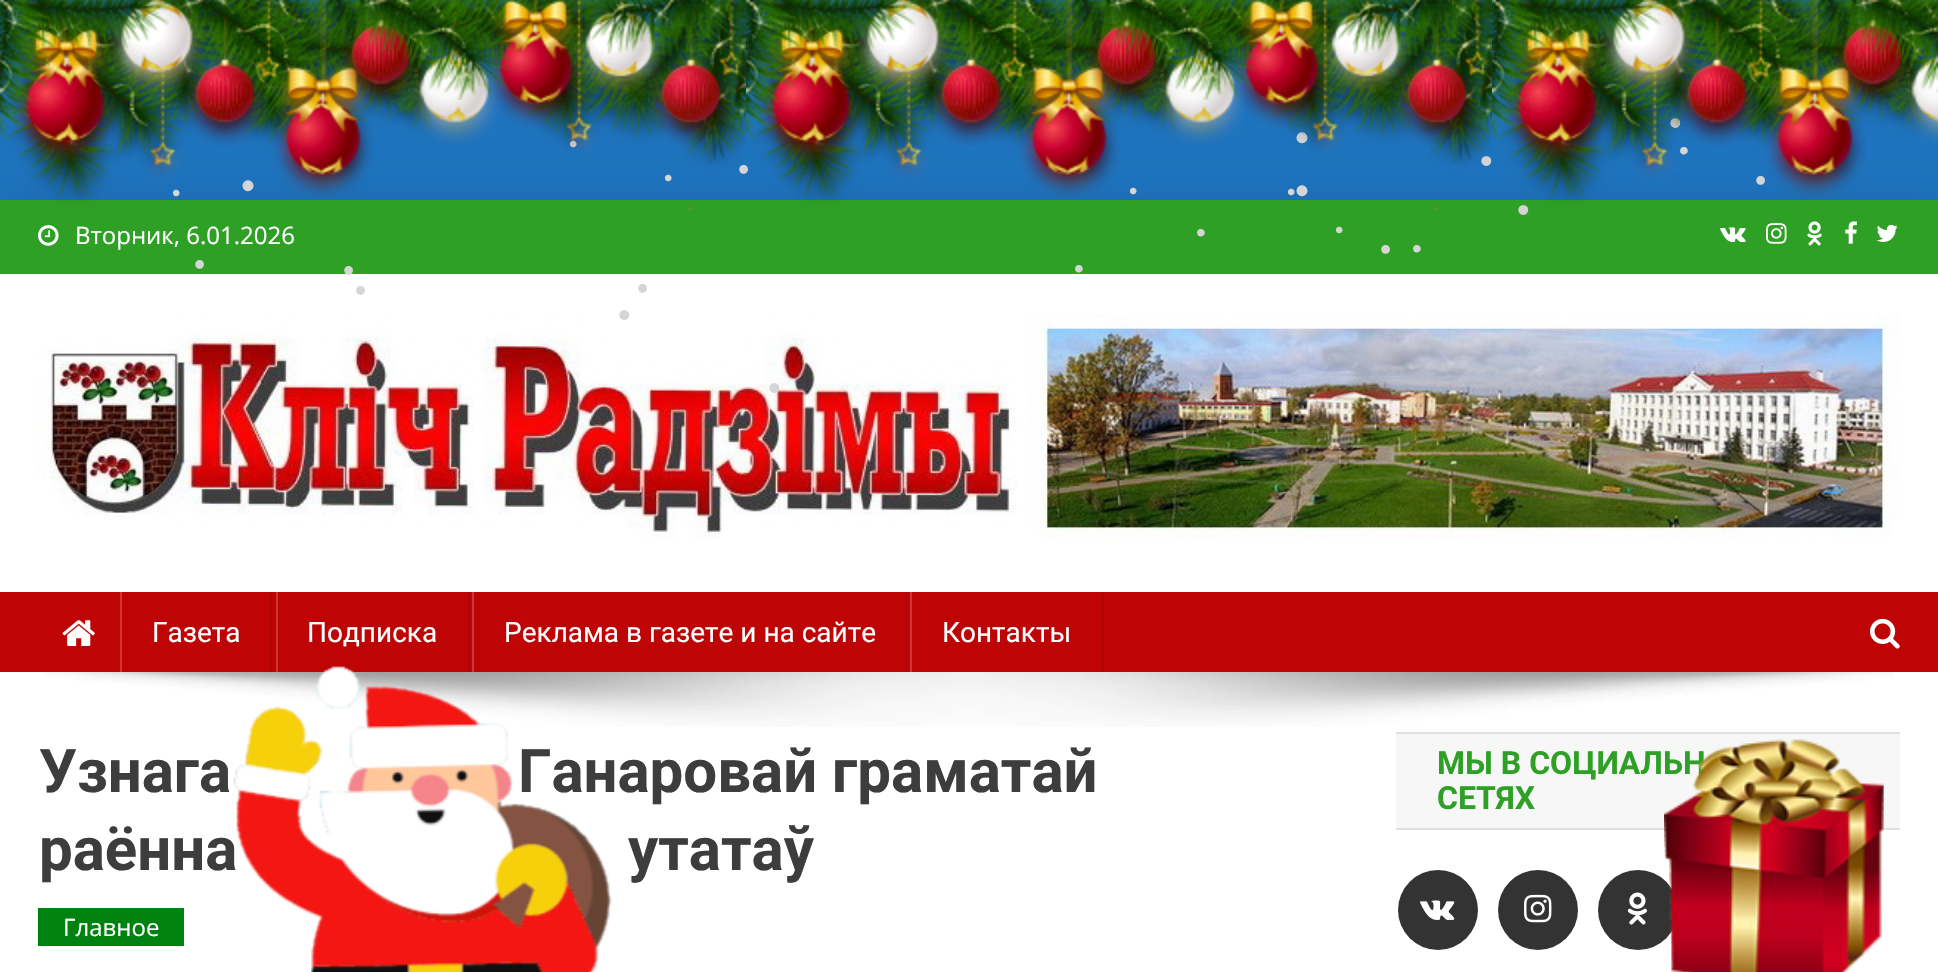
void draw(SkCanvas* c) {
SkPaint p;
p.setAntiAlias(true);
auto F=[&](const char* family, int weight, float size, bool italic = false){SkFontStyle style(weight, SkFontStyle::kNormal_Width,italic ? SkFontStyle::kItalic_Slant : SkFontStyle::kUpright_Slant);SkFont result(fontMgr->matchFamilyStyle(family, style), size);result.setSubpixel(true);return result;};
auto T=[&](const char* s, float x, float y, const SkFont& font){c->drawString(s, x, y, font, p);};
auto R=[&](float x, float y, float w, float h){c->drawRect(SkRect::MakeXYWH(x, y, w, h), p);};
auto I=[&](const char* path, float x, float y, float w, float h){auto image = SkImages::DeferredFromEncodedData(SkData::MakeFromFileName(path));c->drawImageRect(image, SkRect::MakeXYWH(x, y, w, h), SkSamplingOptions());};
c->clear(0xff1e73be);
auto f1 = F("Liberation Sans",400,36);
p.setColor(0xffd6d5d5);
T("•",1669,135,f1);
auto f2 = F("Liberation Sans",400,24);
T("•",569,152,f2);
auto f3 = F("Liberation Sans",400,40);
T("•",1295,151,f3);
p.setColor(0x1a000000);
p.setMaskFilter(SkMaskFilter::MakeBlur(kNormal_SkBlurStyle, 15));
c->drawRect(SkRect::MakeXYWH(0,200,1938,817),p);
p.setMaskFilter(nullptr);
auto f4 = F("Liberation Sans",400,28);
p.setColor(0xffd6d5d5);
T("•",1679,160,f4);
T("•",1480,173,f1);
auto f5 = F("Liberation Sans",400,32);
T("•",738,180,f5);
T("•",172,201,f2);
T("•",241,199,f3);
T("•",664,186,f2);
T("•",1129,199,f2);
T("•",1287,200,f2);
T("•",1295,204,f3);
T("•",1755,191,f5);
p.setColor(0xff2ea026);
R(0,200,1938,74);
p.setColor(0xffd6d5d5);
T("•",1517,222,f1);
I("1.png",0,0,1938,210);
I("3.png",13,0,103,164);
I("2.png",0,0,50,142);
I("5.png",108,0,98,96);
I("4.png",50,0,122,54);
I("6.png",273,0,101,199);
I("7.png",339,0,81,107);
I("13.png",408,12,92,132);
I("8.png",354,0,56,62);
I("10.png",487,0,96,127);
I("9.png",410,0,100,100);
I("11.png",574,0,92,98);
I("12.png",184,18,81,128);
I("16.png",650,20,81,126);
I("14.png",578,0,156,56);
I("15.png",734,0,12,138);
I("18.png",759,0,103,164);
I("17.png",746,0,50,142);
I("20.png",854,0,98,96);
I("19.png",796,0,122,54);
I("21.png",1019,0,101,199);
I("22.png",1085,0,81,107);
I("13.png",1154,12,92,132);
I("23.png",1100,0,56,62);
I("10.png",1233,0,96,127);
I("9.png",1156,0,100,100);
I("11.png",1320,0,92,98);
I("24.png",930,18,81,128);
I("16.png",1396,20,81,126);
I("25.png",1324,0,156,56);
I("15.png",1480,0,12,138);
I("27.png",1505,0,103,164);
I("26.png",1492,0,50,142);
I("5.png",1600,0,98,96);
I("4.png",1542,0,122,54);
I("28.png",1765,0,101,199);
I("22.png",1831,0,81,107);
I("29.png",1676,18,81,128);
I("31.png",1900,49,38,94);
I("23.png",1846,0,56,62);
I("30.png",1902,0,36,93);
p.setColor(0xffffffff);
R(0,274,1938,698);
I("32.png",38,225,21,21);
auto f6 = F("Open Sans",400,24);
T("Вторник, 6.01.2026",75,244,f6);
I("33.png",1720,227,26,15);
I("34.png",1766,223,21,21);
I("35.png",1807,221,15,25);
I("36.png",1845,221,12,23);
I("37.png",1876,224,22,18);
I("38.png",38,314,1862,228);
p.setColor(0xffbf0405);
R(0,592,1938,80);
I("39.png",62,620,33,26);
p.setColor(0xffb00405);
R(270,592,2,80);
p.setColor(0xffcc3637);
R(120,592,2,80);
auto f7 = F("Roboto",400,28);
p.setColor(0xffffffff);
T("Газета",152,642,f7);
p.setColor(0xffb00405);
R(468,592,2,80);
p.setColor(0xffcc3637);
R(276,592,2,80);
p.setColor(0xffffffff);
T("Подписка",307,642,f7);
p.setColor(0xffb00405);
R(906,592,2,80);
p.setColor(0xffcc3637);
R(472,592,2,80);
p.setColor(0xffffffff);
T("Реклама в газете и на сайте",504,642,f7);
p.setColor(0xffb00405);
R(1102,592,2,80);
p.setColor(0xffcc3637);
R(910,592,2,80);
p.setColor(0xffffffff);
T("Контакты",942,642,f7);
I("40.png",1870,618,30,31);
I("41.png",44,672,1849,55);
auto f8 = F("Roboto",700,60);
p.setColor(0xff3d3d3d);
T("Узнага",39,792,f8);
T("Ганаровай граматай",518,792,f8);
T("раённа",39,870,f8);
T("утатаў",628,870,f8);
p.setColor(0xff008211);
R(38,908,146,38);
p.setColor(0xffffffff);
T("Главное",63,936,f6);
p.setColor(0xfff7f7f7);
R(1396,734,504,94);
p.setColor(0xffe1e1e1);
R(1396,732,504,2);
R(1396,828,504,2);
auto f9 = F("Roboto",700,32);
p.setColor(0xff2ea026);
T("МЫ В СОЦИАЛЬН",1437,774,f9);
T("СЕТЯХ",1437,809,f9);
p.setColor(0xff333333);
c->drawCircle(1438,910,40,p);
I("42.png",1420,900,35,20);
c->drawCircle(1538,910,40,p);
I("43.png",1524,894,28,29);
c->drawCircle(1638,910,40,p);
I("44.png",1627,892,20,33);
p.setColor(0xffd6d5d5);
T("•",1196,242,f4);
T("•",1335,238,f2);
T("•",1380,260,f5);
T("•",1412,258,f4);
T("•",194,275,f5);
T("•",343,281,f5);
T("•",1074,278,f4);
T("•",355,301,f5);
T("•",637,299,f5);
T("•",618,327,f1);
T("•",768,400,f1);
I("45.png",233,666,379,306);
I("46.png",1664,739,220,233);
}
